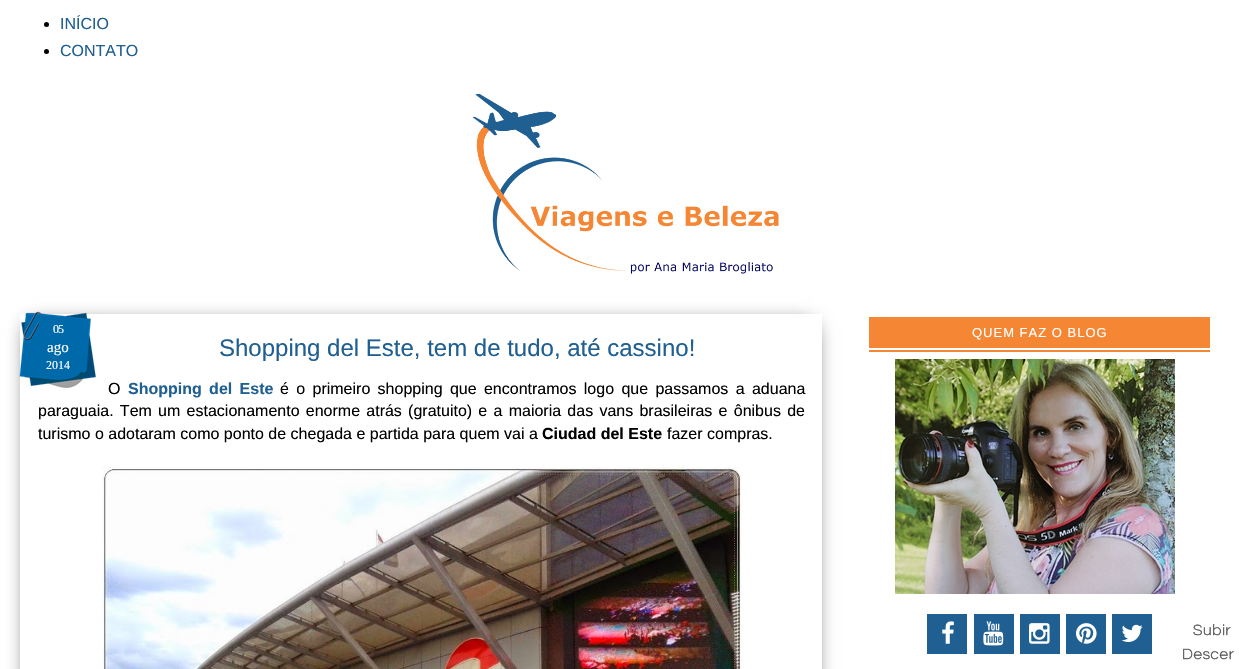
void draw(SkCanvas* c) {
SkPaint p;
p.setAntiAlias(true);
auto F=[&](const char* family, int weight, float size, bool italic = false){SkFontStyle style(weight, SkFontStyle::kNormal_Width,italic ? SkFontStyle::kItalic_Slant : SkFontStyle::kUpright_Slant);SkFont result(fontMgr->matchFamilyStyle(family, style), size);result.setSubpixel(true);return result;};
auto T=[&](const char* s, float x, float y, const SkFont& font){c->drawString(s, x, y, font, p);};
auto L=[&](const char* s, float x, float y, const SkFont& font, const SkPaint& ink, float letter, float word){std::vector<SkGlyphID> glyphs(font.countText(s, strlen(s), SkTextEncoding::kUTF8));std::vector<float> xs(glyphs.size());font.textToGlyphs(s, strlen(s), SkTextEncoding::kUTF8, glyphs);font.getXPos(glyphs, xs, x);float extra = 0;for (size_t i = 0; i < glyphs.size(); i++) {xs[i] += extra;extra += letter + word * (glyphs[i] == font.unicharToGlyph(' '));}c->drawTextBlob(SkTextBlob::MakeFromPosHGlyphs(glyphs, xs, y, font), 0, 0, ink);};
auto R=[&](float x, float y, float w, float h){c->drawRect(SkRect::MakeXYWH(x, y, w, h), p);};
auto I=[&](const char* path, float x, float y, float w, float h){auto image = SkImages::DeferredFromEncodedData(SkData::MakeFromFileName(path));c->drawImageRect(image, SkRect::MakeXYWH(x, y, w, h), SkSamplingOptions());};
auto P=[&](const char* data, bool evenOdd = false){SkPath result = *SkParsePath::FromSVGString(data);if (evenOdd) result.setFillType(SkPathFillType::kEvenOdd);return result;};
c->clear(0xffffffff);
p.setColor(0xff000000);
c->drawCircle(46.5,24.5,2.5,p);
auto f1 = F("Liberation Sans",400,16);
p.setColor(0xff1f5f92);
T("INÍCIO",60,29,f1);
p.setColor(0xff000000);
c->drawCircle(46.5,51.5,2.5,p);
p.setColor(0xff1f5f92);
T("CONTATO",60,56,f1);
I("1.png",472,94,307,180);
c->save();
c->clipPath(P("M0 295h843v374h-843zm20 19h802v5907h-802z",true),true);
p.setColor(0xff000000);
p.setMaskFilter(SkMaskFilter::MakeBlur(kNormal_SkBlurStyle, 10));
c->drawRect(SkRect::MakeXYWH(30,326,782,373),p);
p.setMaskFilter(nullptr);
c->restore();
I("2.png",19,311,77,78);
auto f2 = F("Liberation Serif",400,12);
p.setColor(0xffffffff);
L("05",53,333,f2,p,-1,0);
auto f3 = F("Liberation Serif",400,15);
T("ago",47,352,f3);
T("2014",46,369,f2);
auto f4 = F("Liberation Sans",400,24);
p.setColor(0xff1f5f92);
T("Shopping del Este, tem de tudo, até cassino!",219,356,f4);
p.setColor(0xff000000);
T("O",108,394,f1);
auto f5 = F("Liberation Sans",700,16);
p.setColor(0xff1f5f92);
L("Shopping del Este",128,394,f5,p,0,2.9);
p.setColor(0xff000000);
L("é o primeiro shopping que encontramos logo que passamos a aduana",280,394,f1,p,0,2.9);
L("paraguaia. Tem um estacionamento enorme atrás (gratuito) e a maioria das vans brasileiras e ônibus de",38,416,f1,p,0,1.8);
T("turismo o adotaram como ponto de chegada e partida para quem vai a",38,439,f1);
T("Ciudad del Este",542,439,f5);
T("fazer compras.",667,439,f1);
I("3.png",102,467,640,202);
p.setColor(0xfff58634);
R(869,317,341,35);
p.setColor(0xffffffff);
R(869,348,341,2);
auto f6 = F("Liberation Sans",400,13);
L("QUEM FAZ O BLOG",972,337,f6,p,1,0);
I("4.png",895,359,280,235);
p.setColor(0xff1f5f92);
R(927,614,40,40);
I("5.png",942,621,12,23);
R(974,614,40,40);
I("6.png",983,621,21,25);
R(1020,614,40,40);
I("7.png",1029,623,21,21);
R(1066,614,40,40);
I("8.png",1076,623,21,21);
R(1112,614,40,40);
I("9.png",1121,624,22,18);
I("10.png",1193,624,38,12);
I("11.png",1183,648,51,12);
}
